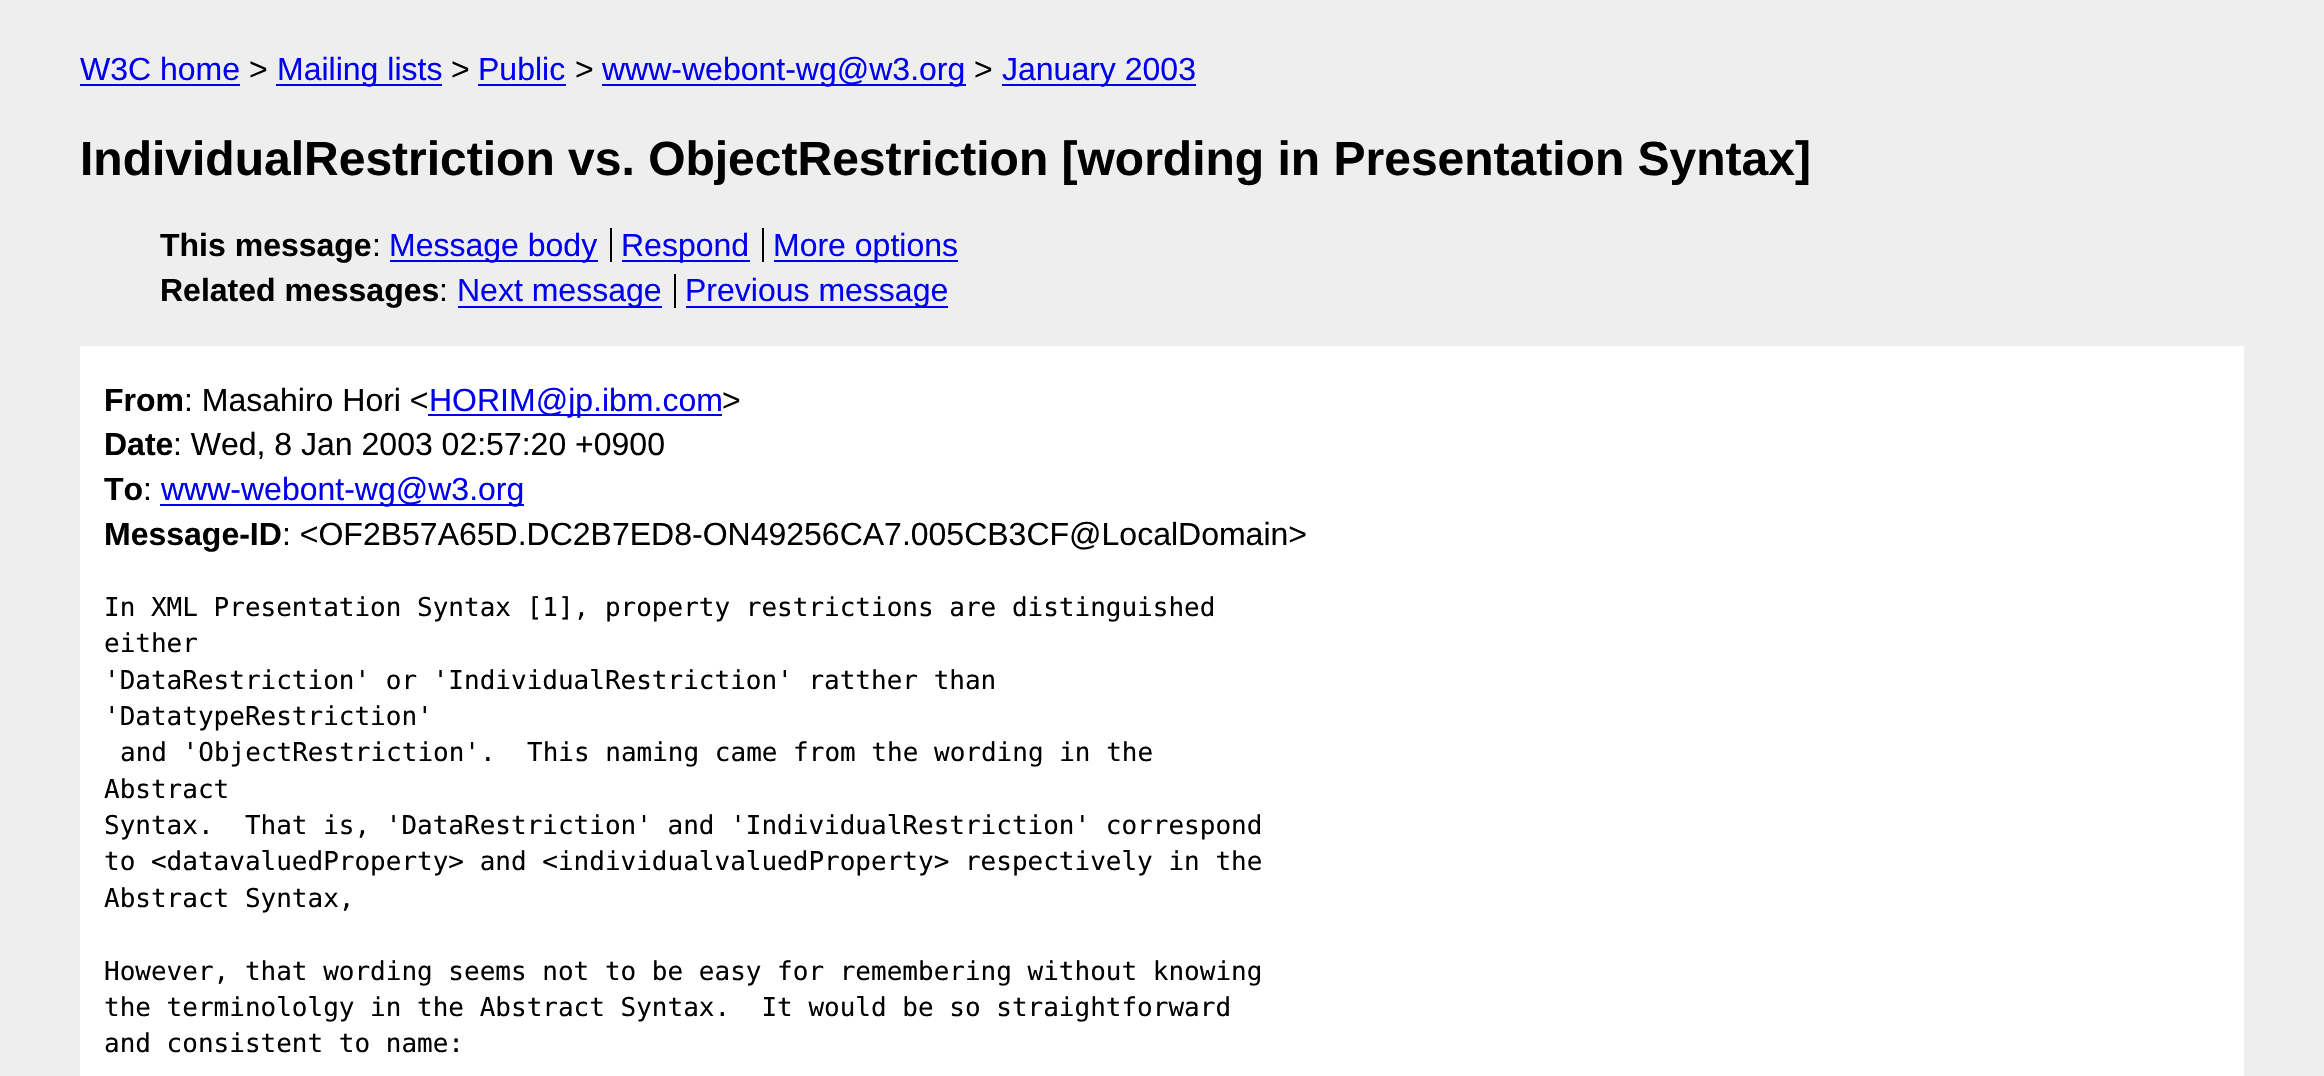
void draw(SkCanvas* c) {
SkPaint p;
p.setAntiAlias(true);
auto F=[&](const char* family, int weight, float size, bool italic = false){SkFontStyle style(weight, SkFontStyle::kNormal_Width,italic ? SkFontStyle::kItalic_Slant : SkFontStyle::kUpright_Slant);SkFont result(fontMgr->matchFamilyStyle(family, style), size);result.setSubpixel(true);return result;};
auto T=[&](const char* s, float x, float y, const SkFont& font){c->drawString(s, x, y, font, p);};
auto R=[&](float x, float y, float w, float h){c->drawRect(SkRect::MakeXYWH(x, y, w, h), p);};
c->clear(0xffeeeeee);
auto f1 = F("Liberation Sans",400,32);
p.setColor(0xff0000ee);
T("W3C home",80,80,f1);
R(80,84,160,2);
p.setColor(0xff000000);
T(">",249,80,f1);
p.setColor(0xff0000ee);
R(276,84,166,2);
T("Mailing lists",277,80,f1);
p.setColor(0xff000000);
T(">",451,80,f1);
p.setColor(0xff0000ee);
T("Public",478,80,f1);
R(478,84,88,2);
p.setColor(0xff000000);
T(">",575,80,f1);
p.setColor(0xff0000ee);
R(602,84,364,2);
T("www-webont-wg@w3.org",602,80,f1);
p.setColor(0xff000000);
T(">",974,80,f1);
p.setColor(0xff0000ee);
R(1002,84,194,2);
T("January 2003",1002,80,f1);
auto f2 = F("Liberation Sans",700,48);
p.setColor(0xff000000);
T("IndividualRestriction vs. ObjectRestriction [wording in Presentation Syntax]",80,175,f2);
auto f3 = F("Liberation Sans",700,32);
T("This message",160,256,f3);
T(":",372,256,f1);
p.setColor(0xff0000ee);
R(390,260,208,2);
T("Message body",389,256,f1);
R(622,260,128,2);
T("Respond",621,256,f1);
p.setColor(0xff000000);
R(610,228,2,34);
p.setColor(0xff0000ee);
R(774,260,184,2);
T("More options",773,256,f1);
p.setColor(0xff000000);
R(762,228,2,34);
T("Related messages",160,301,f3);
T(":",439,301,f1);
p.setColor(0xff0000ee);
R(458,306,204,2);
T("Next message",457,301,f1);
R(686,306,262,2);
T("Previous message",685,301,f1);
p.setColor(0xff000000);
R(674,274,2,34);
p.setColor(0xffffffff);
R(80,346,2164,730);
p.setColor(0xff000000);
T("From",104,411,f3);
T(": Masahiro Hori <",184,411,f1);
p.setColor(0xff0000ee);
R(428,414,294,2);
T("HORIM@jp.ibm.com",429,411,f1);
p.setColor(0xff000000);
T(">",722,411,f1);
T("Date",104,455,f3);
T(": Wed, 8 Jan 2003 02:57:20 +0900",173,455,f1);
T("To",104,500,f3);
T(":",143,500,f1);
p.setColor(0xff0000ee);
R(160,504,364,2);
T("www-webont-wg@w3.org",161,500,f1);
p.setColor(0xff000000);
T("Message-ID",104,545,f3);
T(": <OF2B57A65D.DC2B7ED8-ON49256CA7.005CB3CF@LocalDomain>",282,545,f1);
auto f4 = F("DejaVu Sans Mono",400,26);
T("In XML Presentation Syntax [1], property restrictions are distinguished",104,616,f4);
T("either",104,652,f4);
T("'DataRestriction' or 'IndividualRestriction' ratther than",104,689,f4);
T("'DatatypeRestriction'",104,725,f4);
T("and 'ObjectRestriction'.  This naming came from the wording in the",120,761,f4);
T("Abstract",104,798,f4);
T("Syntax.  That is, 'DataRestriction' and 'IndividualRestriction' correspond",104,834,f4);
T("to <datavaluedProperty> and <individualvaluedProperty> respectively in the",104,870,f4);
T("Abstract Syntax,",104,907,f4);
T("However, that wording seems not to be easy for remembering without knowing",104,980,f4);
T("the terminololgy in the Abstract Syntax.  It would be so straightforward",104,1016,f4);
T("and consistent to name:",104,1052,f4);
}
